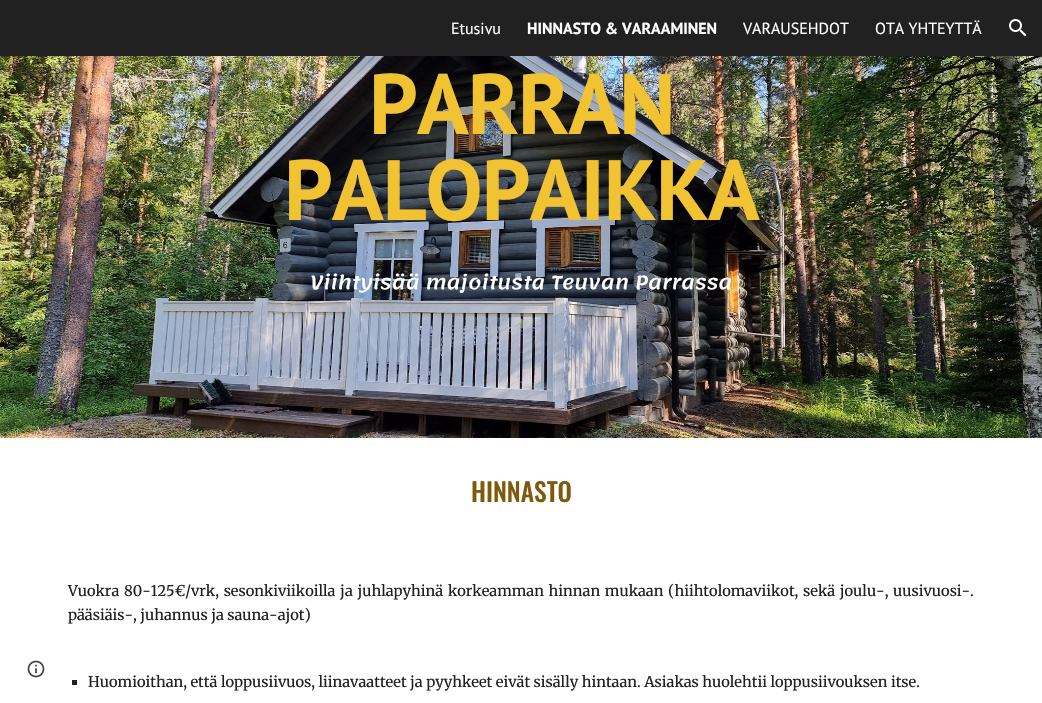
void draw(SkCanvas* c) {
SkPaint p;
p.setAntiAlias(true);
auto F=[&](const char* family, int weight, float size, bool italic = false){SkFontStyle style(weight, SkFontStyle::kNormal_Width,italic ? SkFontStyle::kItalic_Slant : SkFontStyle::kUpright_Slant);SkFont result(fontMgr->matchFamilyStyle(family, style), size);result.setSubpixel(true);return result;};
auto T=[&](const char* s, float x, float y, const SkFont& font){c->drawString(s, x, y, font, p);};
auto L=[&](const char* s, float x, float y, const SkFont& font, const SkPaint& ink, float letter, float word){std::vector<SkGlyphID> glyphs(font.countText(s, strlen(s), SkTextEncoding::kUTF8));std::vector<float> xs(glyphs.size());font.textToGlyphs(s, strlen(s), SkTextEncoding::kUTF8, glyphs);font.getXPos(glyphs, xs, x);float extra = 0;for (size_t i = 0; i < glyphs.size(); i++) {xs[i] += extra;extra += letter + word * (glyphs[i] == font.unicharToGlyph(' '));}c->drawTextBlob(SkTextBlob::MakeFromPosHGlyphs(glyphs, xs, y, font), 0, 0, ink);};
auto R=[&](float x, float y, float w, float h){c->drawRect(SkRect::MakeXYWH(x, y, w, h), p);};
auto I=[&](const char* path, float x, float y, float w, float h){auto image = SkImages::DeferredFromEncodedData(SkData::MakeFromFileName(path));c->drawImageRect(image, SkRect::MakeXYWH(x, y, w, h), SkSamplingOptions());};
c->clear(0xffffffff);
p.setColor(0xff212121);
R(0,0,1042,56);
auto f1 = F("PT Sans",400,16);
p.setColor(0xffffffff);
T("Etusivu",451,34,f1);
auto f2 = F("PT Sans",700,16);
T("HINNASTO & VARAAMINEN",527,34,f2);
T("VARAUSEHDOT",743,34,f1);
T("OTA YHTEYTTÄ",875,34,f1);
I("1.png",1009,19,18,18);
I("2.png",27,660,18,18);
I("3.png",0,56,1042,382);
auto f3 = F("PT Sans",700,85.5);
p.setColor(0xfff1c232);
L("PARRAN",369,134,f3,p,-1,0);
L("PALOPAIKKA",284,220,f3,p,-1,0);
auto f4 = F("Lemonada",500,18.7);
p.setColor(0xffffffff);
T("Viihtyisää majoitusta Teuvan Parrassa",311,289,f4);
auto f5 = F("Oswald",500,25.5);
p.setColor(0xff80590b);
T("HINNASTO",471,502,f5);
auto f6 = F("Merriweather",400,14.67);
p.setColor(0xff212121);
L("Vuokra 80-125€/vrk, sesonkiviikoilla ja juhlapyhinä korkeamman hinnan mukaan (hiihtolomaviikot, sekä joulu-, uusivuosi-.",68,596,f6,p,0,1.25);
T("pääsiäis-, juhannus ja sauna-ajot)",68,620,f6);
R(72,680,5,5);
T("Huomioithan, että loppusiivuos, liinavaatteet ja pyyhkeet eivät sisälly hintaan. Asiakas huolehtii loppusiivouksen itse.",88,687,f6);
}
